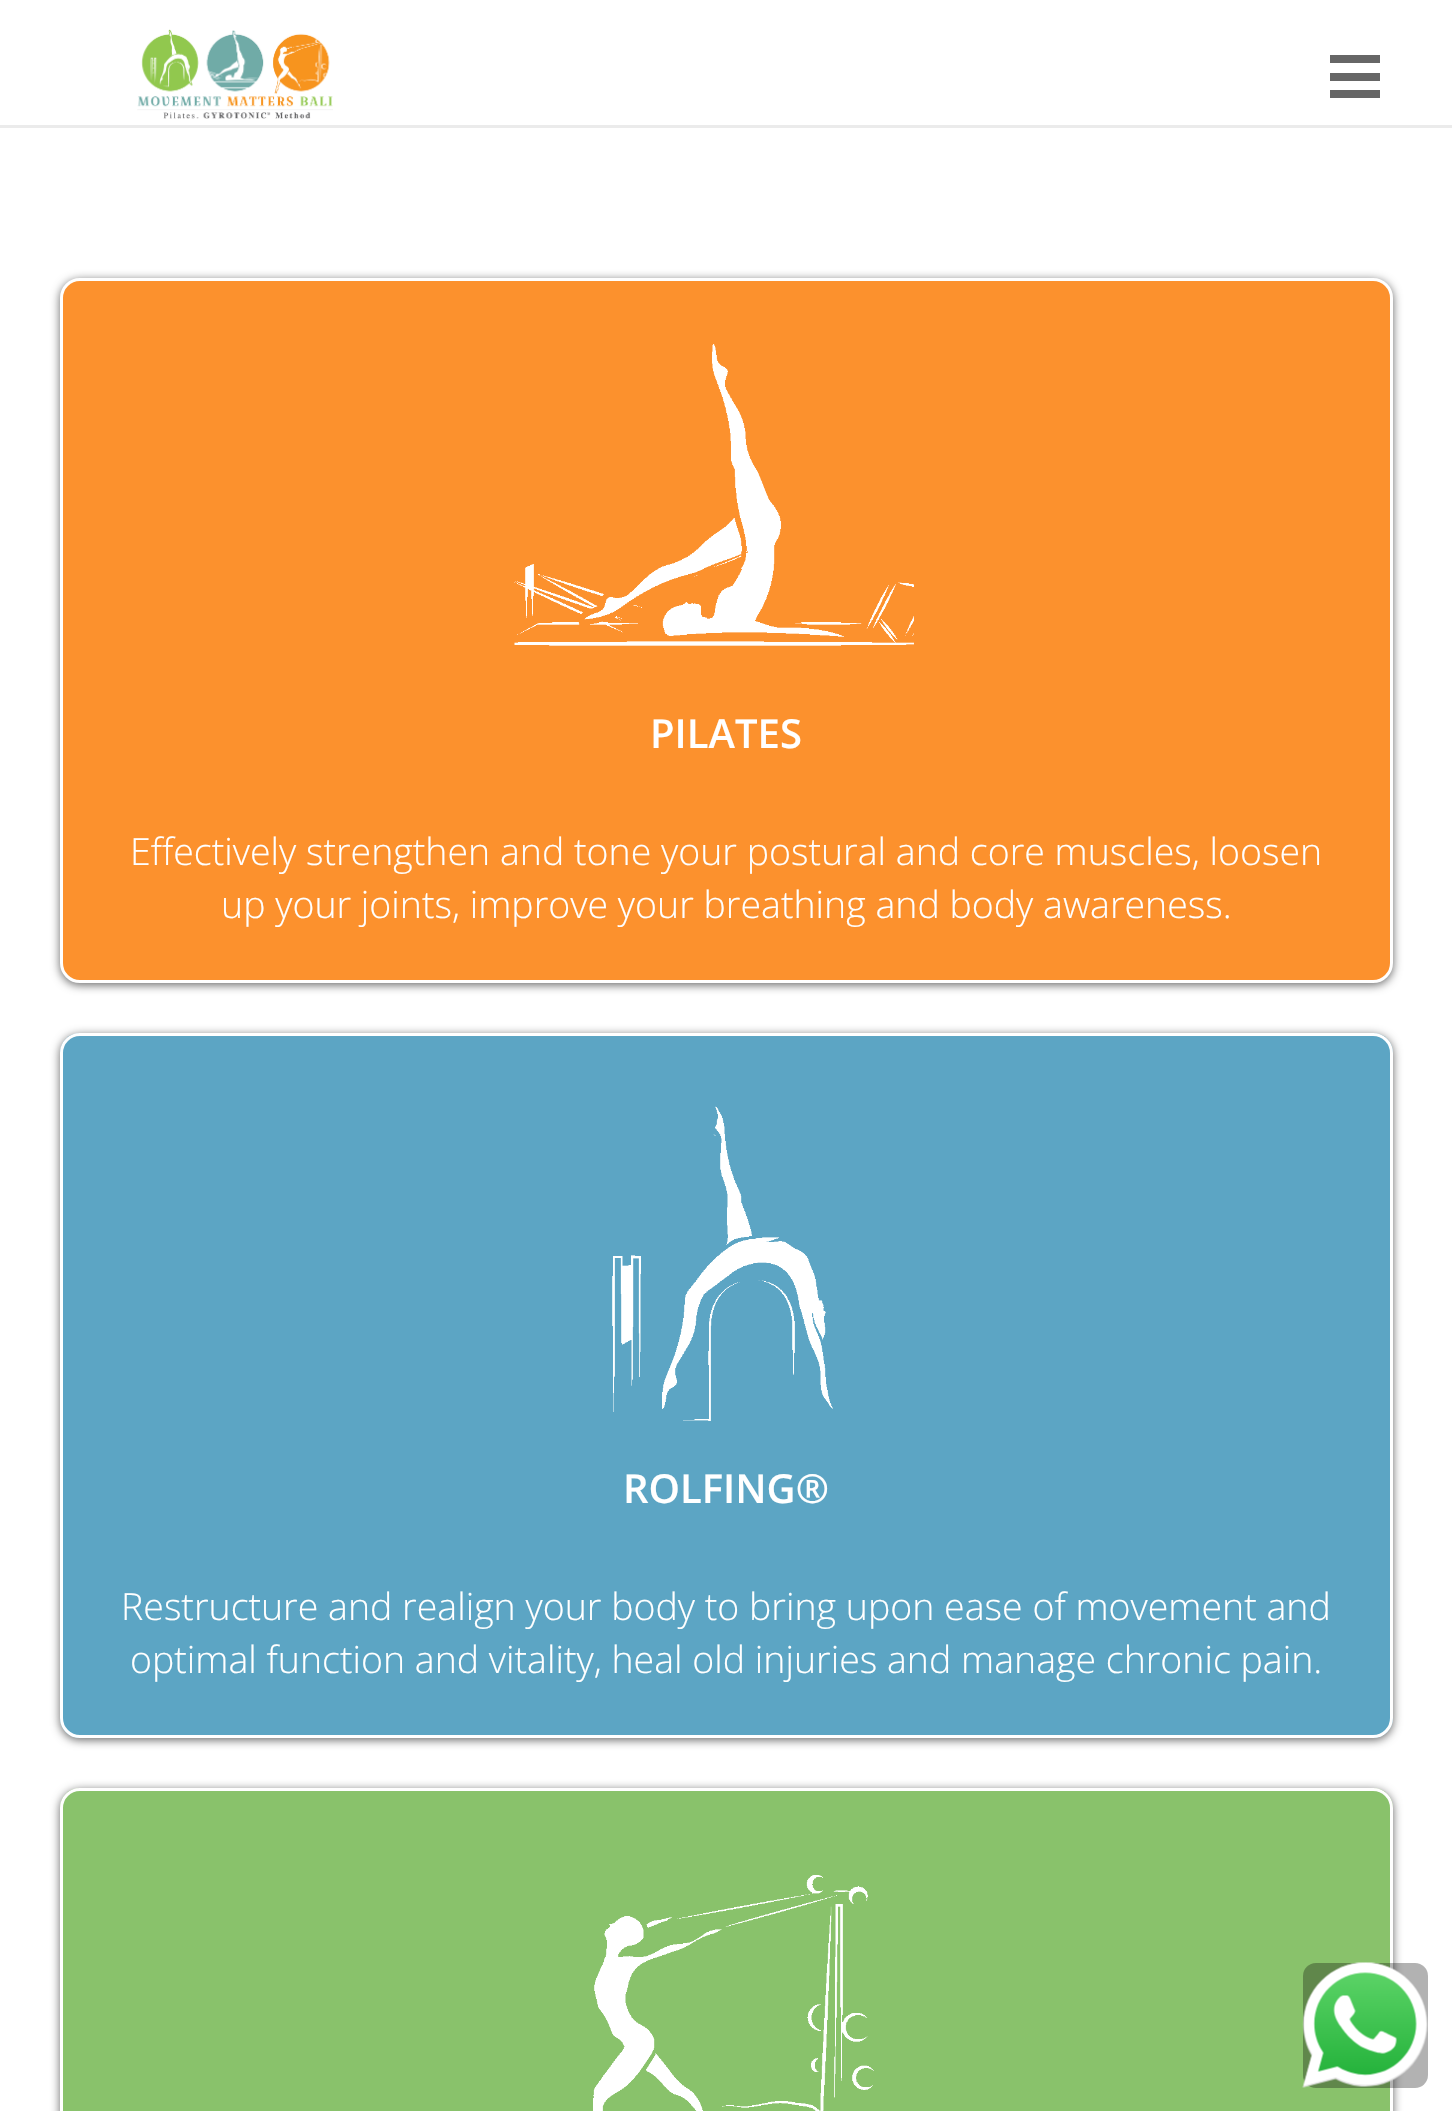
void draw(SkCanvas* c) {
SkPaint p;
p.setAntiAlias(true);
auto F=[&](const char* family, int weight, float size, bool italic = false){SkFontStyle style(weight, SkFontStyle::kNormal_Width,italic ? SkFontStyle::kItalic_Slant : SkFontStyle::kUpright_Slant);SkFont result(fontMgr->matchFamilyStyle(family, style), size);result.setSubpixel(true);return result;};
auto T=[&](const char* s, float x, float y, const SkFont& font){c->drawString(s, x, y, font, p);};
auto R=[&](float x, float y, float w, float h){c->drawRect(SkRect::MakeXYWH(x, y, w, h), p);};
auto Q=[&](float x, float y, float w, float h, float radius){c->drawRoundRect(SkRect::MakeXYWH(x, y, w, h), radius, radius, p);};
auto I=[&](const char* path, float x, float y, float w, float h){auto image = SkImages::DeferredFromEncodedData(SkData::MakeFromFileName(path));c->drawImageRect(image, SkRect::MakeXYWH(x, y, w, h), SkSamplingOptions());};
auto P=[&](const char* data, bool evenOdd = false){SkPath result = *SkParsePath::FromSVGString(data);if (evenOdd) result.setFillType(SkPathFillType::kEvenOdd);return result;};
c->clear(0xffffffff);
p.setColor(0xffebebeb);
c->drawPath(P("M0 125v3h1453v-125h-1v122z"),p);
I("1.png",137,29,196,90);
p.setColor(0xff666666);
R(1330,73,50,8);
R(1330,55,50,8);
R(1330,90,50,8);
p.setColor(0x99000000);
p.setMaskFilter(SkMaskFilter::MakeBlur(kNormal_SkBlurStyle, 5));
c->drawRoundRect(SkRect::MakeXYWH(60,280,1333,705),20,20,p);
p.setMaskFilter(nullptr);
p.setColor(0xfffc912d);
c->drawRoundRect(SkRect::MakeXYWH(61.5,279.5,1330,702),18.5,18.5,p);
p.setStroke(true);
p.setStrokeWidth(3);
p.setColor(0xffffffff);
c->drawRoundRect(SkRect::MakeXYWH(61.5,279.5,1330,702),18.5,18.5,p);
I("2.png",514,344,400,302);
auto f1 = F("Open Sans",600,40);
p.setStroke(false);
T("PILATES",650,748,f1);
auto f2 = F("Open Sans",300,37.5);
T("Effectively strengthen and tone your postural and core muscles, loosen",130,865,f2);
T("up your joints, improve your breathing and body awareness.",221,918,f2);
p.setColor(0xff5ca5c4);
Q(60,1033,1333,705,20);
c->save();
c->clipPath(P("M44 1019h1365v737h-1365zm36 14h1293c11 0 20 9 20 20v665c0 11-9 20-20 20h-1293c-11 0-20-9-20-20v-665c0-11 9-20 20-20z",true),true);
p.setColor(0x99000000);
p.setMaskFilter(SkMaskFilter::MakeBlur(kNormal_SkBlurStyle, 5));
c->drawRoundRect(SkRect::MakeXYWH(60,1035,1333,705),20,20,p);
p.setMaskFilter(nullptr);
c->restore();
p.setStroke(true);
p.setColor(0xffffffff);
c->drawRoundRect(SkRect::MakeXYWH(61.5,1034.5,1330,702),18.5,18.5,p);
I("3.png",612,1106,221,315);
p.setStroke(false);
T("ROLFING®",623,1503,f1);
T("Restructure and realign your body to bring upon ease of movement and",121,1620,f2);
T("optimal function and vitality, heal old injuries and manage chronic pain.",130,1673,f2);
p.setColor(0xff89c26b);
Q(60,1788,1333,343,20);
c->save();
c->clipPath(P("M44 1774h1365v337h-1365zm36 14h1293c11 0 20 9 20 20v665c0 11-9 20-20 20h-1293c-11 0-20-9-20-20v-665c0-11 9-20 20-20z",true),true);
p.setColor(0x99000000);
p.setMaskFilter(SkMaskFilter::MakeBlur(kNormal_SkBlurStyle, 5));
c->drawRoundRect(SkRect::MakeXYWH(60,1790,1333,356),20,20,p);
p.setMaskFilter(nullptr);
c->restore();
p.setStroke(true);
p.setColor(0xffffffff);
c->drawRoundRect(SkRect::MakeXYWH(61.5,1789.5,1330,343),18.5,18.5,p);
I("4.png",593,1875,281,236);
p.setStroke(false);
p.setColor(0x4d000000);
Q(1303,1963,125,125,13);
I("5.png",1302,1962,126,126);
}
